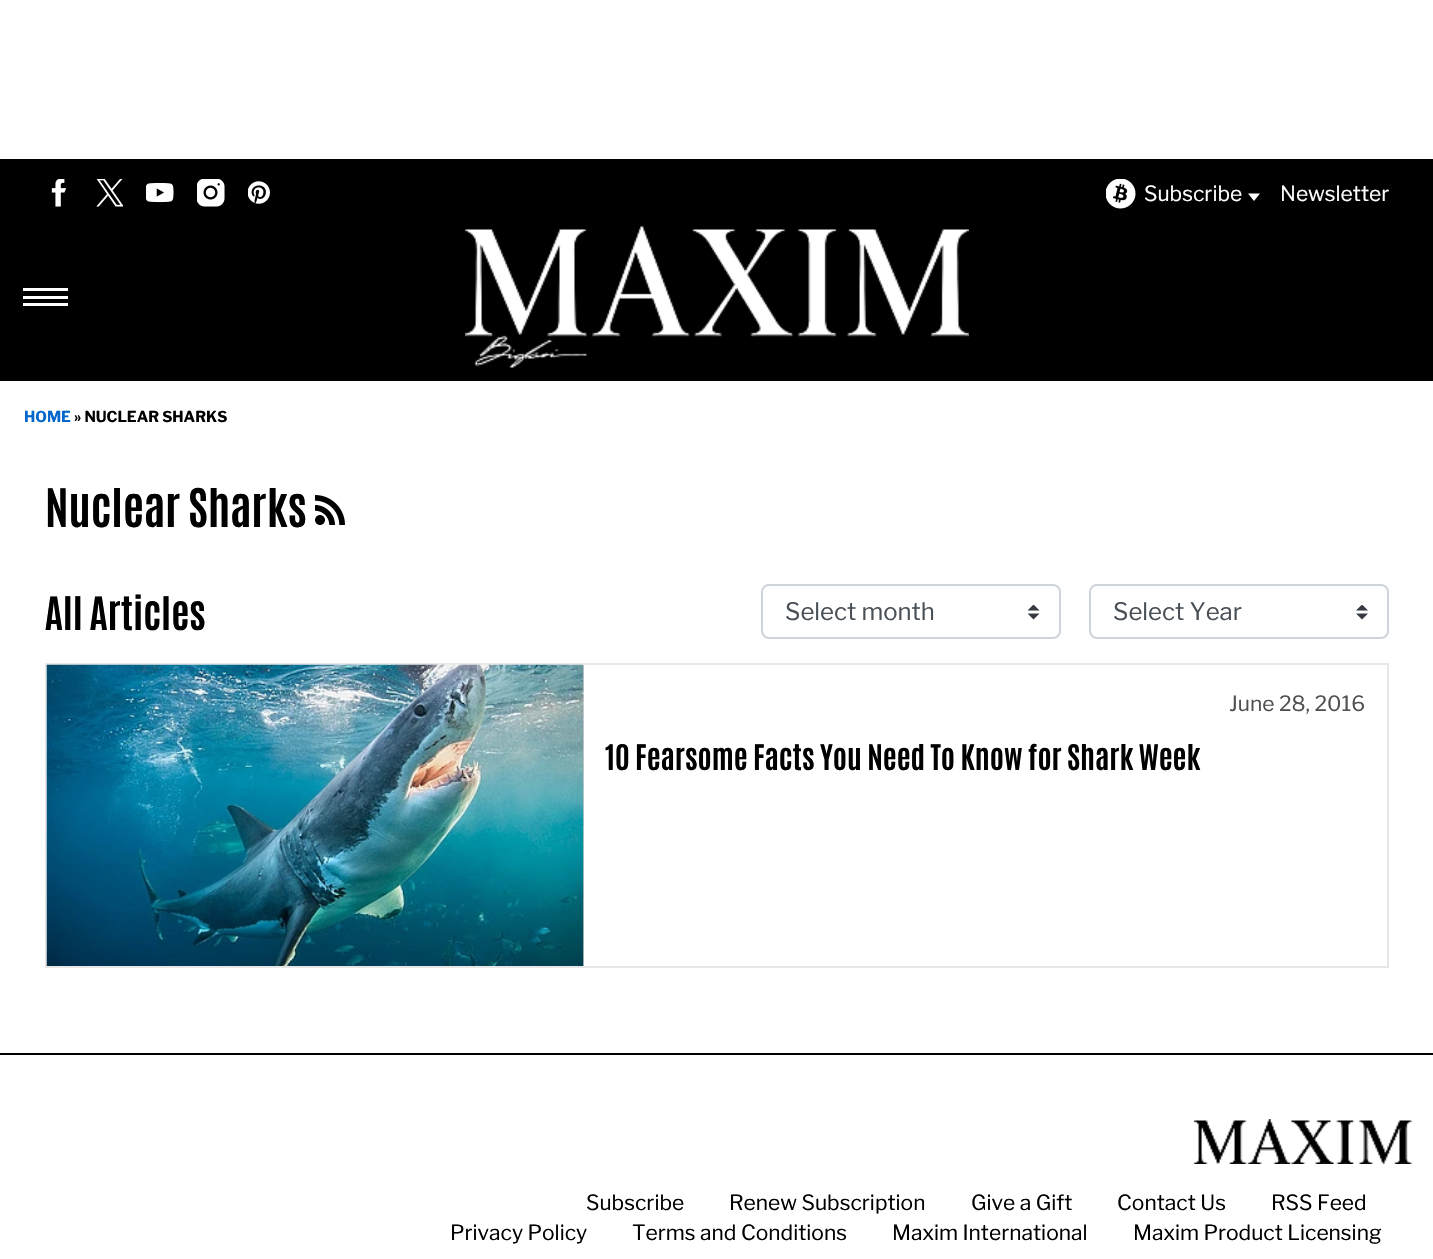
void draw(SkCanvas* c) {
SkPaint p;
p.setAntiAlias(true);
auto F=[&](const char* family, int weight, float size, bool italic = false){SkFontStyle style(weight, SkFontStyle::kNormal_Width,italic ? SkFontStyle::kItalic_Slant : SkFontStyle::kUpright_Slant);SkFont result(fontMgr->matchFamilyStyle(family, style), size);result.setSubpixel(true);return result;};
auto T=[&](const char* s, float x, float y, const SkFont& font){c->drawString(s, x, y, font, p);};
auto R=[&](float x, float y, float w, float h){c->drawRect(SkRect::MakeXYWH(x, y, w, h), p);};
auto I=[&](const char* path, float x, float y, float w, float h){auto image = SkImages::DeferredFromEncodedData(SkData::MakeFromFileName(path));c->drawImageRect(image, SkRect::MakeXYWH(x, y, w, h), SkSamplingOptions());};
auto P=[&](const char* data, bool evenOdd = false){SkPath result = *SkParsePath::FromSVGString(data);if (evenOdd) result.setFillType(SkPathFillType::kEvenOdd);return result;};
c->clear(0xffffffff);
p.setColor(0xff000000);
R(0,159,1433,222);
I("1.png",51,179,16,28);
I("2.png",96,179,27,28);
I("3.png",146,182,28,21);
I("4.png",197,179,28,28);
I("5.png",248,181,22,23);
I("6.png",1106,179,30,30);
auto f1 = F("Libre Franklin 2",100,21);
p.setColor(0xffffffff);
T("Subscribe",1144,201,f1);
c->drawPath(P("M1248 193.5h12l-6 7.5z"),p);
T("Newsletter",1280,201,f1);
R(23,288,45,3);
R(23,296,45,3);
R(23,303,45,3);
I("7.png",465,226,504,142);
auto f2 = F("Libre Franklin",100,15);
p.setColor(0xff0066cc);
T("HOME",24,422,f2);
p.setColor(0xff000000);
T("» NUCLEAR SHARKS",74,422,f2);
auto f3 = F("Antonio",700,45);
T("Nuclear Sharks",45,527,f3);
I("8.png",315,495,30,30);
auto f4 = F("Antonio",700,39);
T("All Articles",45,630,f4);
I("9.png",1028,605,12,15);
p.setStroke(true);
p.setStrokeWidth(2);
p.setColor(0xffced4da);
c->drawRoundRect(SkRect::MakeXYWH(762,585,298,53),7,7,p);
auto f5 = F("Libre Franklin 2",100,24);
p.setStroke(false);
p.setColor(0xff495057);
T("Select month",785,620,f5);
I("10.png",1356,605,12,15);
p.setStroke(true);
p.setColor(0xffced4da);
c->drawRoundRect(SkRect::MakeXYWH(1090,585,298,53),7,7,p);
p.setStroke(false);
p.setColor(0xff495057);
T("Select Year",1113,620,f5);
p.setStroke(true);
p.setColor(0xffe7e7e7);
c->drawRect(SkRect::MakeXYWH(46,664,1342,303),p);
p.setStroke(false);
p.setColor(0xffcecece);
R(583,665,1,301);
I("11.png",46,664,538,302);
p.setColor(0xff505050);
T("June 28, 2016",1229,711,f1);
auto f6 = F("Antonio",700,30);
p.setColor(0xff000000);
T("10 Fearsome Facts You Need To Know for Shark Week",605,770,f6);
R(0,1053,1433,2);
I("12.png",1194,1119,218,45);
T("Subscribe",586,1210,f1);
T("Renew Subscription",729,1210,f1);
T("Give a Gift",971,1210,f1);
T("Contact Us",1117,1210,f1);
T("RSS Feed",1271,1210,f1);
T("Privacy Policy",450,1240,f1);
T("Terms and Conditions",632,1240,f1);
T("Maxim International",892,1240,f1);
T("Maxim Product Licensing",1133,1240,f1);
}
